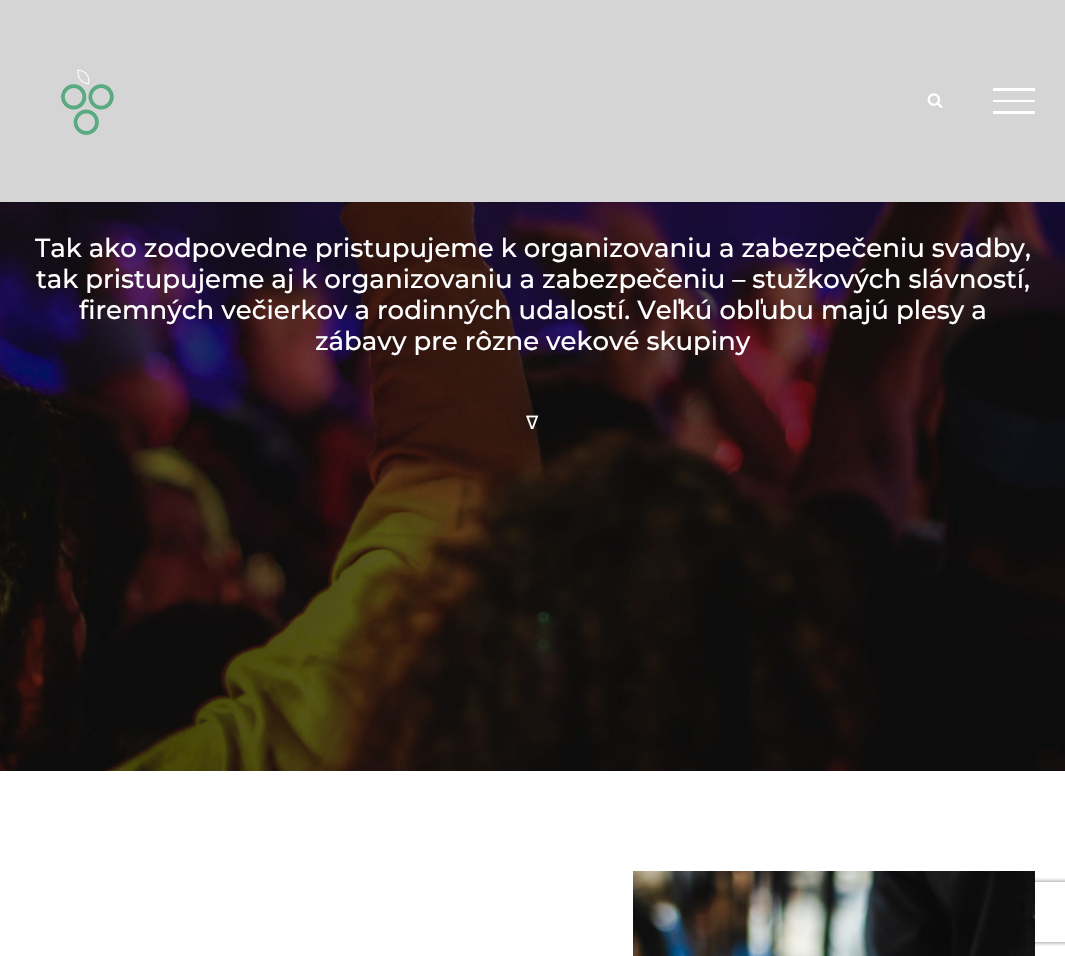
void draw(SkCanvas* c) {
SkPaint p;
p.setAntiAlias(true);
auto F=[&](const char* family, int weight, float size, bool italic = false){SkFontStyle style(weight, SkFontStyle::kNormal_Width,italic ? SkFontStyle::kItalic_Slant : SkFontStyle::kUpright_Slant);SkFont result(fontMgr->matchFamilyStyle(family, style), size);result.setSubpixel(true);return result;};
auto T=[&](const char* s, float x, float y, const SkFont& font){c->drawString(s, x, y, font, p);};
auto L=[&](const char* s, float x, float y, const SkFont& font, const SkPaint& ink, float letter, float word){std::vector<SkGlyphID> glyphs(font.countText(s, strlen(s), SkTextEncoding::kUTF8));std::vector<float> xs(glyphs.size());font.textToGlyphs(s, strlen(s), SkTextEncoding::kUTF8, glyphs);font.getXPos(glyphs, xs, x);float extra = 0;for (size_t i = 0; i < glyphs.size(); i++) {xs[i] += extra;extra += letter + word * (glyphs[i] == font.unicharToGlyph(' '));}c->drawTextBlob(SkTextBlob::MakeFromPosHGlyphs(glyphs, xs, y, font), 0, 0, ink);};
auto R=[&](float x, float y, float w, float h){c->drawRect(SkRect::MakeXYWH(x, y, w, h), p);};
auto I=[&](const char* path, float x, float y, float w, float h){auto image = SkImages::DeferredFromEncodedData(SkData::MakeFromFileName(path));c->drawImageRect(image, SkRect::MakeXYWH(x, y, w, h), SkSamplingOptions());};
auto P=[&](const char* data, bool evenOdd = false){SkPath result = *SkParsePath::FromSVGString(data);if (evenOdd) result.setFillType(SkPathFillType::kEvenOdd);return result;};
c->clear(0xffffffff);
I("3.png",0,202,1065,569);
p.setColor(0x1f000000);
p.setMaskFilter(SkMaskFilter::MakeBlur(kNormal_SkBlurStyle, 1.5));
c->drawRect(SkRect::MakeXYWH(0,1,1065,202),p);
p.setMaskFilter(nullptr);
p.setColor(0xffd5d5d5);
R(0,0,1065,202);
I("1.png",61,69,53,66);
I("2.png",927,93,16,15);
p.setColor(0xffffffff);
R(993,88,42,3);
R(993,100,42,2);
R(993,111,42,3);
auto f1 = F("Montserrat",500,26);
T("Tak ako zodpovedne pristupujeme k organizovaniu a zabezpečeniu svadby,",35,257,f1);
T("tak pristupujeme aj k organizovaniu a zabezpečeniu – stužkových slávností,",36,288,f1);
T("firemných večierkov a rodinných udalostí. Veľkú obľubu majú plesy a",79,319,f1);
T("zábavy pre rôzne vekové skupiny",315,350,f1);
auto f2 = F("DejaVu Sans",400,18);
L("ᐁ",526,429,f2,p,1,0);
c->save();
c->clipPath(P("M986 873h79v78h-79zm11 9h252c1 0 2 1 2 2v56c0 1-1 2-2 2h-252c-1 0-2-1-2-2v-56c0-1 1-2 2-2z",true),true);
p.setColor(0xff808080);
p.setMaskFilter(SkMaskFilter::MakeBlur(kNormal_SkBlurStyle, 2.5));
c->drawRoundRect(SkRect::MakeXYWH(995,882,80,60),2,2,p);
p.setMaskFilter(nullptr);
c->restore();
I("4.png",633,871,402,85);
}
